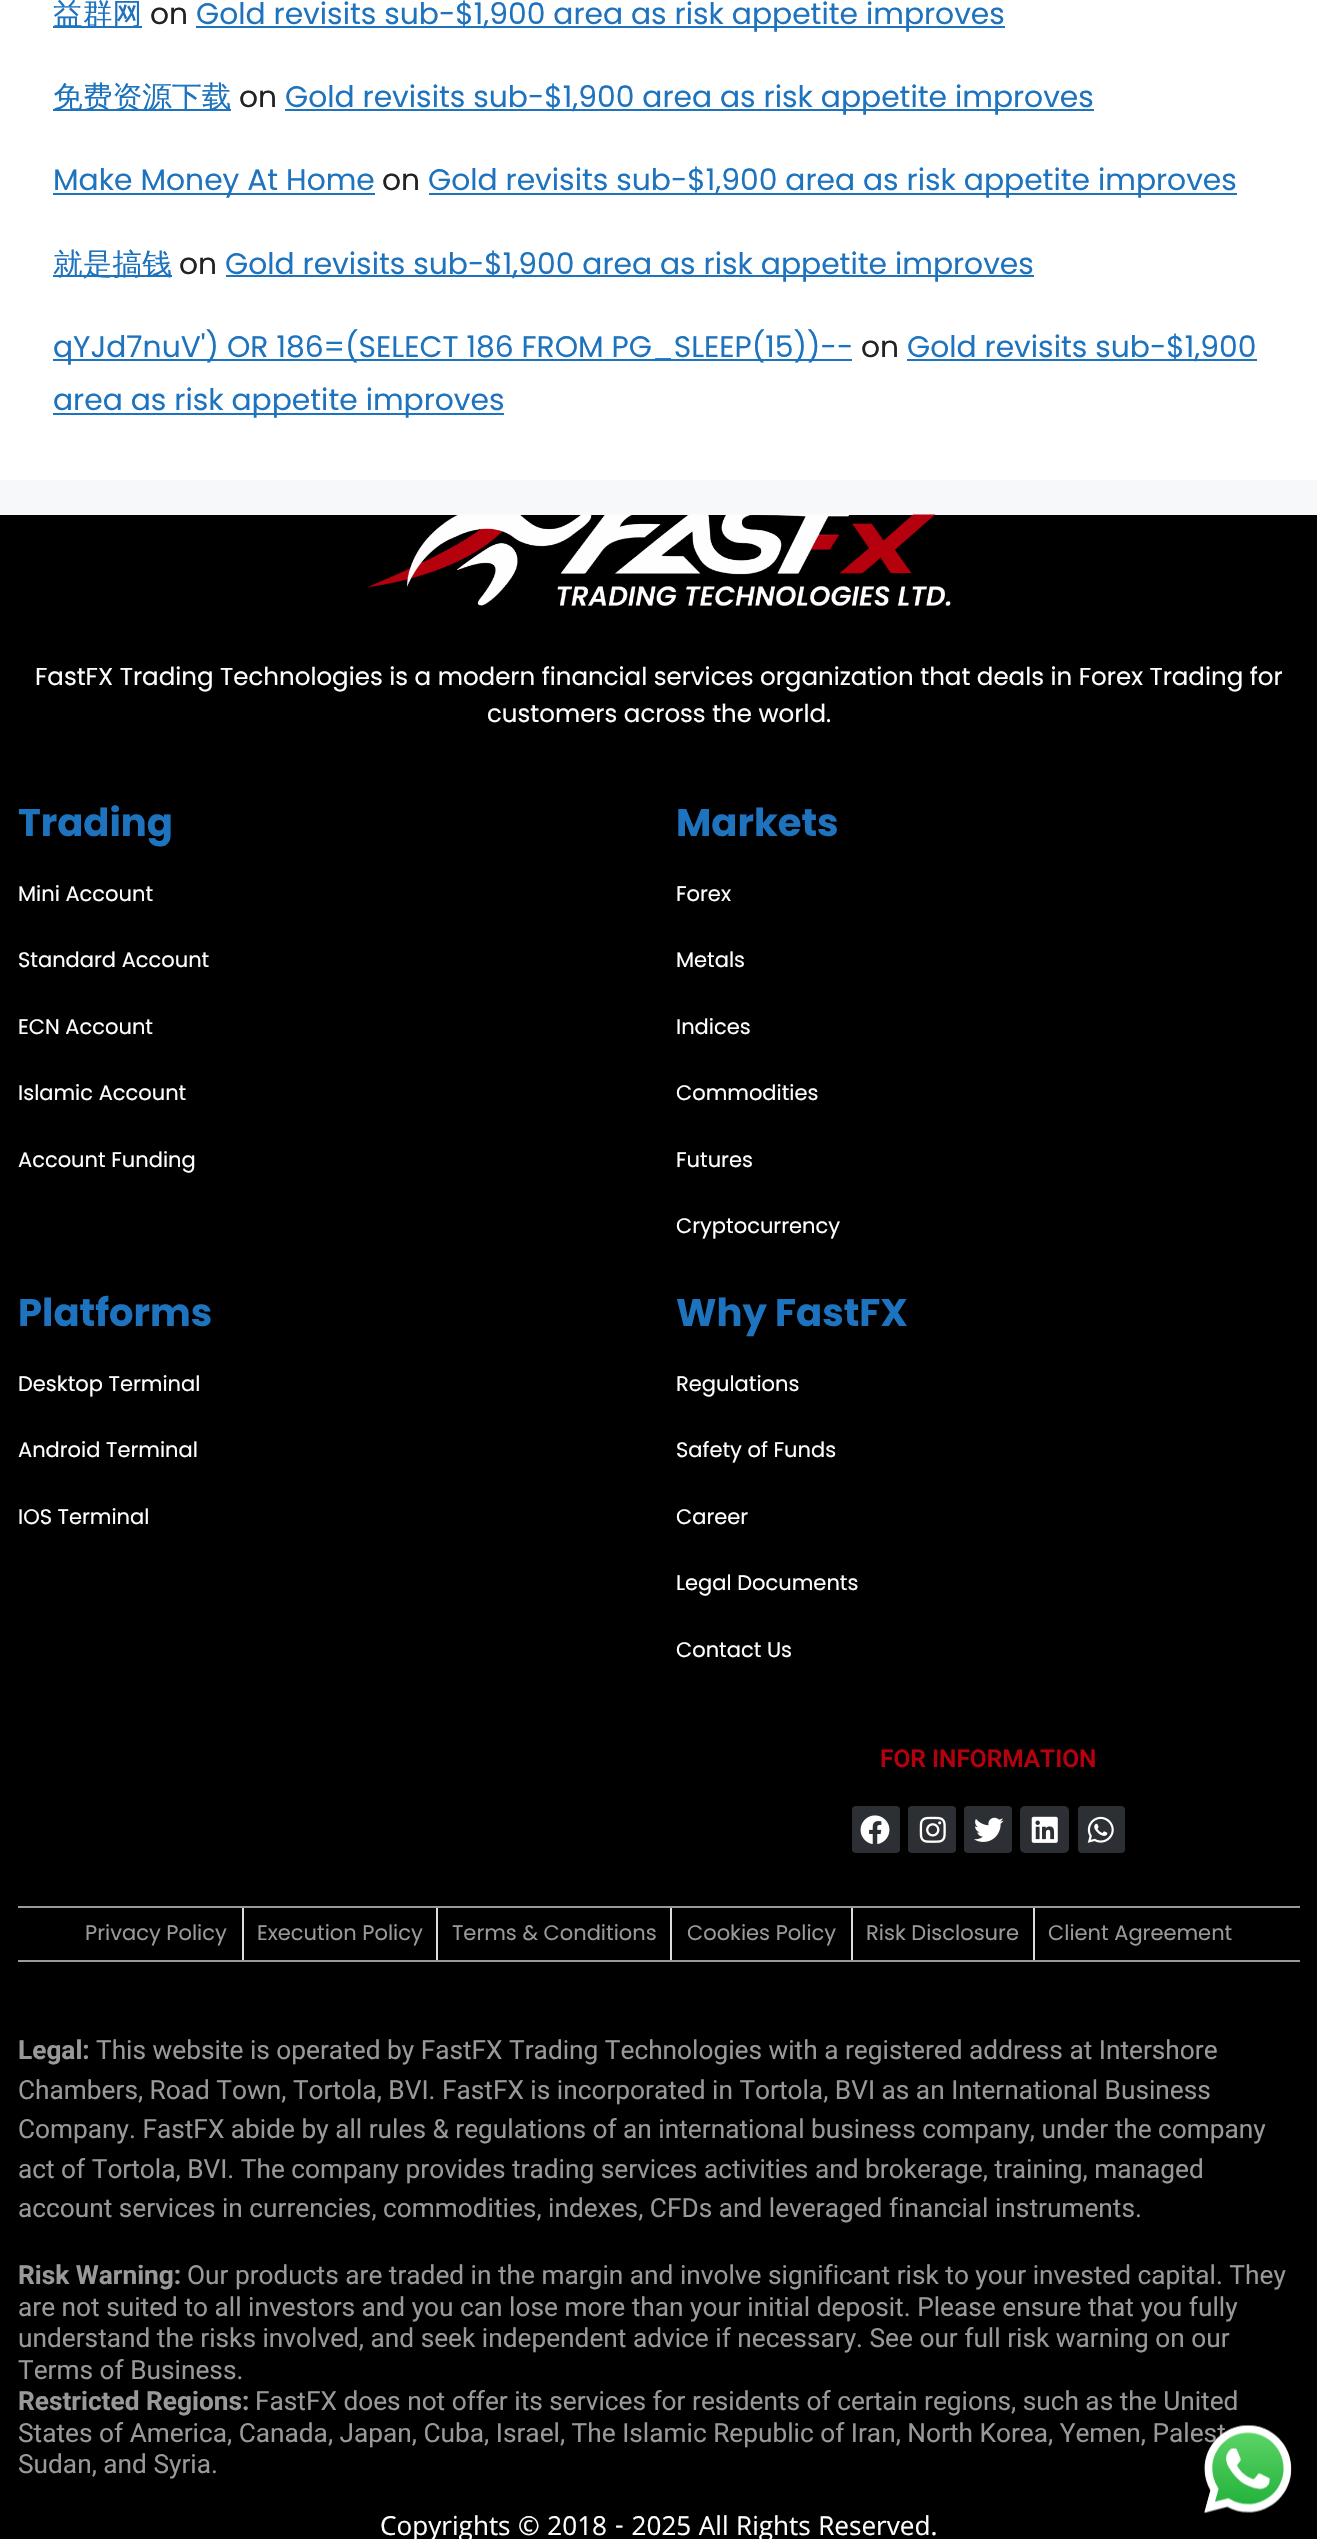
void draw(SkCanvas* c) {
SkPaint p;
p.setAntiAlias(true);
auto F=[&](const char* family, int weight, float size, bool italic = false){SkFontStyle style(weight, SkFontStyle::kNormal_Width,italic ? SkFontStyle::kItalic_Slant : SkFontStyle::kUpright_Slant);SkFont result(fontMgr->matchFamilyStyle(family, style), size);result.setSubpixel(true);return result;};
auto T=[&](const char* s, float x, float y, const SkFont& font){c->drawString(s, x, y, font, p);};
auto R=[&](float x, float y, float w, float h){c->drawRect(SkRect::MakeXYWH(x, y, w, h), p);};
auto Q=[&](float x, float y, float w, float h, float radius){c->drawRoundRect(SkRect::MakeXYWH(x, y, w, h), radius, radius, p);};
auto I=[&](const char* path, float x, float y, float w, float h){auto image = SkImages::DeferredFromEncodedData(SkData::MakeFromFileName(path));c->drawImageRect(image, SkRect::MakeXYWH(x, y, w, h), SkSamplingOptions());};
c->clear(0xfff7f8f9);
p.setColor(0xffffffff);
R(0,0,1317,480);
p.setColor(0xff1e73be);
R(53,26,89,2);
auto f1 = F("WenQuanYi Zen Hei",500,29.75);
T("益群网",53,24,f1);
auto f2 = F("Poppins",400,29.75);
p.setColor(0xff222222);
T("on",150,24,f2);
p.setColor(0xff1e73be);
R(196,26,809,2);
T("Gold revisits sub-$1,900 area as risk appetite improves",196,24,f2);
R(53,109,178,2);
T("免费资源下载",53,107,f1);
p.setColor(0xff222222);
T("on",239,107,f2);
p.setColor(0xff1e73be);
R(285,109,809,2);
T("Gold revisits sub-$1,900 area as risk appetite improves",285,107,f2);
R(53,193,322,2);
T("Make Money At Home",53,190,f2);
p.setColor(0xff222222);
T("on",382,190,f2);
p.setColor(0xff1e73be);
R(429,193,808,2);
T("Gold revisits sub-$1,900 area as risk appetite improves",428,190,f2);
R(53,275,119,2);
T("就是搞钱",53,274,f1);
p.setColor(0xff222222);
T("on",179,274,f2);
p.setColor(0xff1e73be);
R(226,275,808,2);
T("Gold revisits sub-$1,900 area as risk appetite improves",225,274,f2);
R(53,359,799,2);
T("qYJd7nuV') OR 186=(SELECT 186 FROM PG_SLEEP(15))--",53,357,f2);
p.setColor(0xff222222);
T("on",861,357,f2);
p.setColor(0xff1e73be);
R(907,359,350,2);
T("Gold revisits sub-$1,900",907,357,f2);
R(53,413,451,2);
T("area as risk appetite improves",53,410,f2);
p.setColor(0xff000000);
R(0,515,1317,2024);
I("1.png",367,514,584,94);
auto f3 = F("Poppins",400,24.5);
p.setColor(0xffffffff);
T("FastFX Trading Technologies is a modern financial services organization that deals in Forex Trading for",35,685,f3);
T("customers across the world.",487,722,f3);
auto f4 = F("Poppins",700,38.5);
p.setColor(0xff1e73be);
T("Trading",18,836,f4);
auto f5 = F("Poppins",400,21);
p.setColor(0xffffffff);
T("Mini Account",18,901,f5);
T("Standard Account",18,967,f5);
T("ECN Account",18,1034,f5);
T("Islamic Account",18,1100,f5);
T("Account Funding",18,1167,f5);
p.setColor(0xff1e73be);
T("Markets",676,836,f4);
p.setColor(0xffffffff);
T("Forex",676,901,f5);
T("Metals",676,967,f5);
T("Indices",676,1034,f5);
T("Commodities",676,1100,f5);
T("Futures",676,1167,f5);
T("Cryptocurrency",676,1233,f5);
p.setColor(0xff1e73be);
T("Platforms",18,1326,f4);
p.setColor(0xffffffff);
T("Desktop Terminal",18,1391,f5);
T("Android Terminal",18,1457,f5);
T("IOS Terminal",18,1524,f5);
p.setColor(0xff1e73be);
T("Why FastFX",676,1326,f4);
p.setColor(0xffffffff);
T("Regulations",676,1391,f5);
T("Safety of Funds",676,1457,f5);
T("Career",676,1524,f5);
T("Legal Documents",676,1590,f5);
T("Contact Us",676,1657,f5);
auto f6 = F("Roboto",600,24.5);
p.setColor(0xffb5000d);
T("FOR INFORMATION",880,1767,f6);
p.setColor(0xff2c2f34);
Q(852,1806,48,47,4);
I("2.png",860,1815,30,29);
Q(908,1806,48,47,4);
I("3.png",919,1816,27,27);
Q(964,1806,48,47,4);
I("4.png",974,1817,30,25);
Q(1020,1806,49,47,5);
I("5.png",1031,1816,27,27);
Q(1078,1806,47,47,4);
I("6.png",1087,1816,27,27);
p.setColor(0xff999999);
R(18,1906,1282,2);
R(18,1960,1282,2);
T("Privacy Policy",85,1940,f5);
p.setColor(0xffdddddd);
R(242,1908,2,52);
p.setColor(0xff999999);
T("Execution Policy",257,1940,f5);
p.setColor(0xffdddddd);
R(436,1908,2,52);
p.setColor(0xff999999);
T("Terms & Conditions",452,1940,f5);
p.setColor(0xffdddddd);
R(670,1908,2,52);
p.setColor(0xff999999);
T("Cookies Policy",687,1940,f5);
p.setColor(0xffdddddd);
R(851,1908,2,52);
p.setColor(0xff999999);
T("Risk Disclosure",866,1940,f5);
p.setColor(0xffdddddd);
R(1033,1908,2,52);
p.setColor(0xff999999);
T("Client Agreement",1048,1940,f5);
auto f7 = F("Roboto",700,26.25);
T("Legal:",18,2059,f7);
auto f8 = F("Roboto",400,26.25);
T("This website is operated by FastFX Trading Technologies with a registered address at Intershore",96,2059,f8);
T("Chambers, Road Town, Tortola, BVI. FastFX is incorporated in Tortola, BVI as an International Business",18,2099,f8);
T("Company. FastFX abide by all rules & regulations of an international business company, under the company",18,2138,f8);
T("act of Tortola, BVI. The company provides trading services activities and brokerage, training, managed",18,2178,f8);
T("account services in currencies, commodities, indexes, CFDs and leveraged financial instruments.",18,2217,f8);
T("Risk Warning:",18,2284,f7);
T("Our products are traded in the margin and involve significant risk to your invested capital. They",187,2284,f8);
T("are not suited to all investors and you can lose more than your initial deposit. Please ensure that you fully",18,2316,f8);
T("understand the risks involved, and seek independent advice if necessary. See our full risk warning on our",18,2347,f8);
T("Terms of Business.",18,2379,f8);
T("Restricted Regions:",18,2410,f7);
T("FastFX does not offer its services for residents of certain regions, such as the United",255,2410,f8);
T("States of America, Canada, Japan, Cuba, Israel, The Islamic Republic of Iran, North Korea, Yemen, Palest",18,2442,f8);
T("Sudan, and Syria.",18,2473,f8);
auto f9 = F("Khula",400,28);
p.setColor(0xffffffff);
T("Copyrights © 2018 - 2025 All Rights Reserved.",380,2535,f9);
I("7.png",1204,2425,88,89);
}
